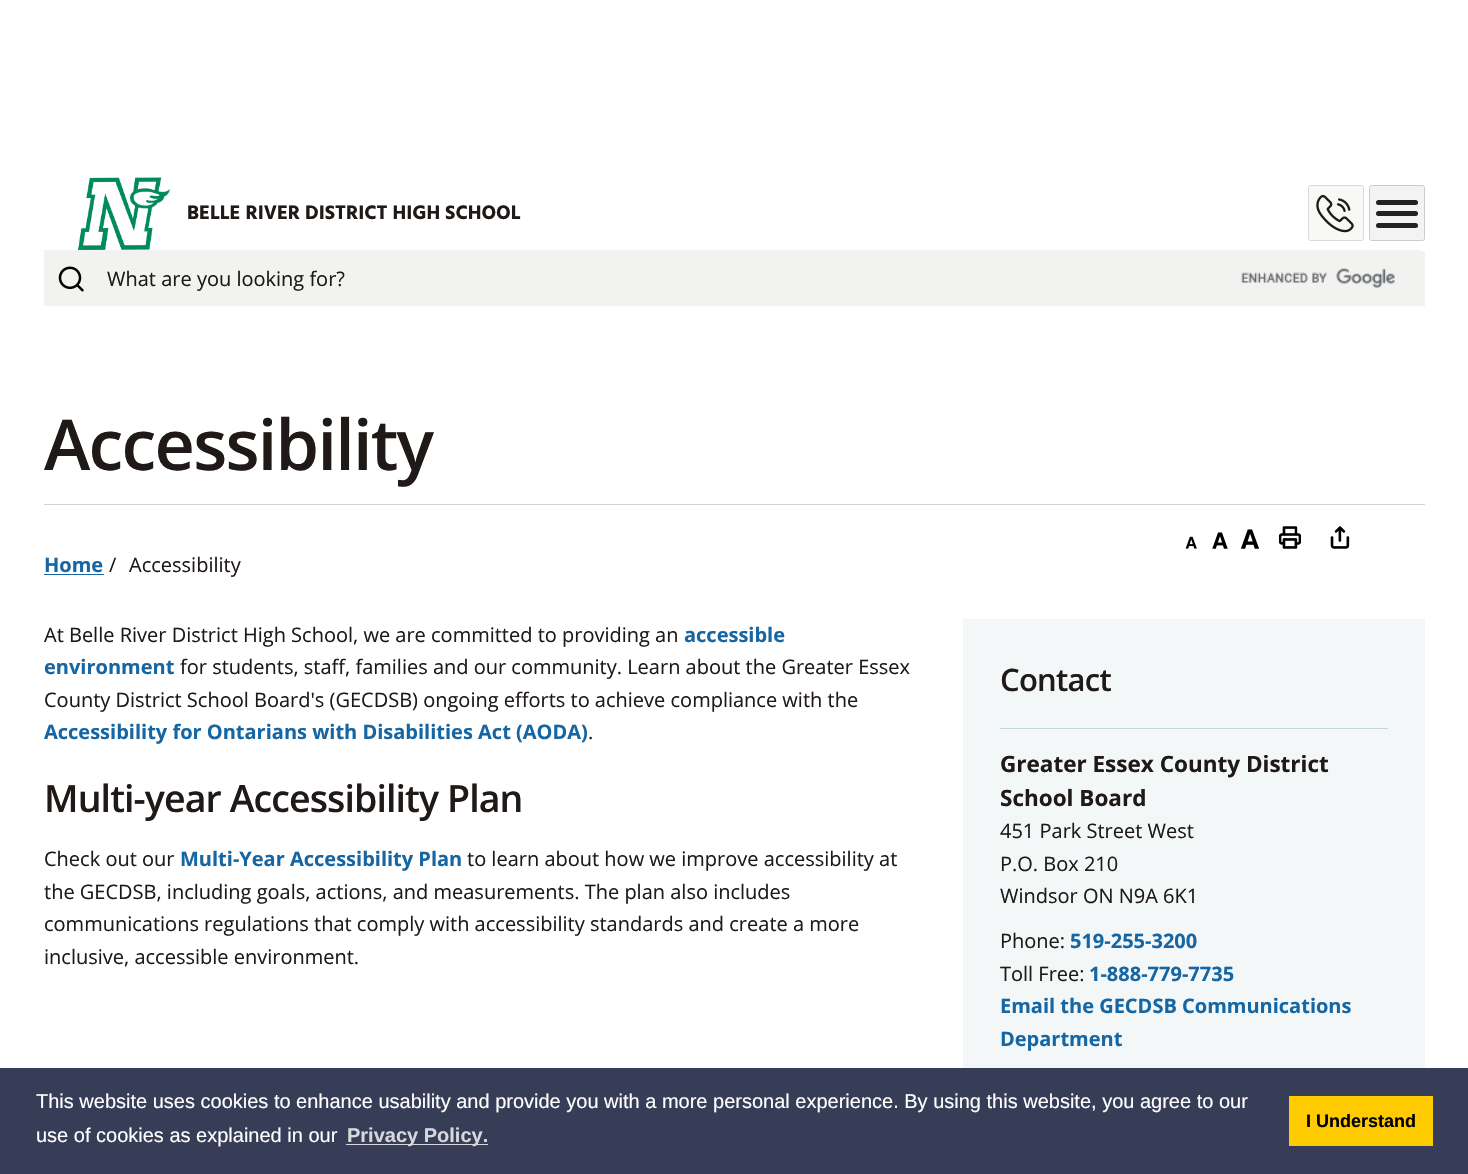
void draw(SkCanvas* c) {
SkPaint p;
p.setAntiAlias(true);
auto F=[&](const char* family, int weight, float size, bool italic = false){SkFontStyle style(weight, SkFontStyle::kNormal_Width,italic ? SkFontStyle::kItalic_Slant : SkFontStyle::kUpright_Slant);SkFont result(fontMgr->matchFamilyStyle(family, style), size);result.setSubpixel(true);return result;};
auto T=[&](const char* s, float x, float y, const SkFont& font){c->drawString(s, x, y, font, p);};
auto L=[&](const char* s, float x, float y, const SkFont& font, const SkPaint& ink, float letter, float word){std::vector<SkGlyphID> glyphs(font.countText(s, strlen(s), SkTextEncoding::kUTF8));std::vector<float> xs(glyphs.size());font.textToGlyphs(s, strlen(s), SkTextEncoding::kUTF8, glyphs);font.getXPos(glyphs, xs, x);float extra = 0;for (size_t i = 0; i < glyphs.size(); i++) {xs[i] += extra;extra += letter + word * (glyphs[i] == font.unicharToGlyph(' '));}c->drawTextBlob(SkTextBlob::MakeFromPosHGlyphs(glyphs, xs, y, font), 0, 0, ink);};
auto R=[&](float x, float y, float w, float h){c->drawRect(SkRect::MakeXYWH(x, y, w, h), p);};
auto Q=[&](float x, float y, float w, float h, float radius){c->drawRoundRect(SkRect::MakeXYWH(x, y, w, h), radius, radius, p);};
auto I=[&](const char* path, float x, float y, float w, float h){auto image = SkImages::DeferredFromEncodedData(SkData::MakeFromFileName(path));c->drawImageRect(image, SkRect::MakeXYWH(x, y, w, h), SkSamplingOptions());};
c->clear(0xffffffff);
I("1.png",77,177,94,73);
auto f1 = F("Hind",700,20);
p.setColor(0xff1f1a17);
T("BELLE RIVER DISTRICT HIGH SCHOOL",187,219,f1);
p.setColor(0xfff8f8f7);
c->drawRoundRect(SkRect::MakeXYWH(1308.5,185.5,55,55),2,2,p);
p.setStroke(true);
p.setStrokeWidth(1);
p.setColor(0xffd9dcd6);
c->drawRoundRect(SkRect::MakeXYWH(1308.5,185.5,55,55),2,2,p);
I("2.png",1316,194,38,39);
p.setStroke(false);
p.setColor(0xfff3f3f3);
c->drawRoundRect(SkRect::MakeXYWH(1369.5,185.5,55,55),2,2,p);
p.setStroke(true);
p.setColor(0xffcccccc);
c->drawRoundRect(SkRect::MakeXYWH(1369.5,185.5,55,55),2,2,p);
p.setStroke(false);
p.setColor(0xff222222);
Q(1376,211,42,5,2.5);
Q(1376,200,42,5,2.5);
Q(1376,223,42,5,2.5);
p.setColor(0xfff2f3f1);
R(44,251,1381,55);
I("3.png",58,266,26,26);
R(44,250,1376,1);
I("4.png",1241,268,154,20);
auto f2 = F("Open Sans",400,20);
p.setColor(0xff1f1a17);
T("What are you looking for?",107,286,f2);
p.setColor(0xffd4d4d4);
R(44,504,1381,1);
auto f3 = F("Open Sans",600,70);
p.setColor(0xff1f1a17);
L("Accessibility",44,470,f3,p,-1.75,0);
I("5.png",1185,536,12,13);
I("6.png",1212,532,16,17);
I("7.png",1240,529,20,20);
I("8.png",1279,526,22,23);
I("9.png",1330,526,20,23);
auto f4 = F("Open Sans",700,20);
p.setColor(0xff1666a3);
T("Home",44,572,f4);
R(44,574,60,1);
p.setColor(0xff1f1a17);
T("/",109,572,f2);
T("Accessibility",129,572,f2);
T("At Belle River District High School, we are committed to providing an",44,642,f2);
p.setColor(0xff1666a3);
T("accessible",684,642,f4);
T("environment",44,674,f4);
p.setColor(0xff1f1a17);
T("for students, staff, families and our community. Learn about the Greater Essex",180,674,f2);
T("County District School Board's (GECDSB) ongoing efforts to achieve compliance with the",44,707,f2);
p.setColor(0xff1666a3);
T("Accessibility for Ontarians with Disabilities Act (AODA)",44,739,f4);
p.setColor(0xff1f1a17);
T(".",588,739,f2);
auto f5 = F("Open Sans",600,37.5);
L("Multi-year Accessibility Plan",44,812,f5,p,-.9,0);
T("Check out our",44,866,f2);
p.setColor(0xff1666a3);
T("Multi-Year Accessibility Plan",180,866,f4);
p.setColor(0xff1f1a17);
T("to learn about how we improve accessibility at",467,866,f2);
T("the GECDSB, including goals, actions, and measurements. The plan also includes",44,899,f2);
T("communications regulations that comply with accessibility standards and create a more",44,931,f2);
T("inclusive, accessible environment.",44,964,f2);
p.setColor(0xfff3f7f8);
R(963,619,462,449);
p.setColor(0xffc2d7da);
R(1000,728,388,1);
auto f6 = F("Open Sans",600,31);
p.setColor(0xff1f1a17);
L("Contact",1000,691,f6,p,-.75,0);
auto f7 = F("Open Sans",700,22.5);
T("Greater Essex County District",1000,772,f7);
T("School Board",1000,806,f7);
T("451 Park Street West",1000,838,f2);
T("P.O. Box 210",1000,871,f2);
T("Windsor ON N9A 6K1",1000,903,f2);
T("Phone:",1000,948,f2);
p.setColor(0xff1666a3);
T("519-255-3200",1070,948,f4);
p.setColor(0xff1f1a17);
T("Toll Free:",1000,981,f2);
p.setColor(0xff1666a3);
T("1-888-779-7735",1089,981,f4);
T("Email the GECDSB Communications",1000,1013,f4);
T("Department",1000,1046,f4);
p.setColor(0xff373d57);
R(0,1068,1468,106);
auto f8 = F("Liberation Sans",400,20);
p.setColor(0xffffffff);
T("This website uses cookies to enhance usability and provide you with a more personal experience. By using this website, you agree to our",36,1108,f8);
T("use of cookies as explained in our",36,1142,f8);
p.setColor(0xffd7d8dd);
R(346,1144,142,1);
auto f9 = F("Liberation Sans",700,20);
T("Privacy Policy.",347,1142,f9);
p.setColor(0xffffca00);
R(1289,1096,144,50);
auto f10 = F("Liberation Sans",700,18);
p.setColor(0xff000000);
T("I Understand",1306,1127,f10);
}
